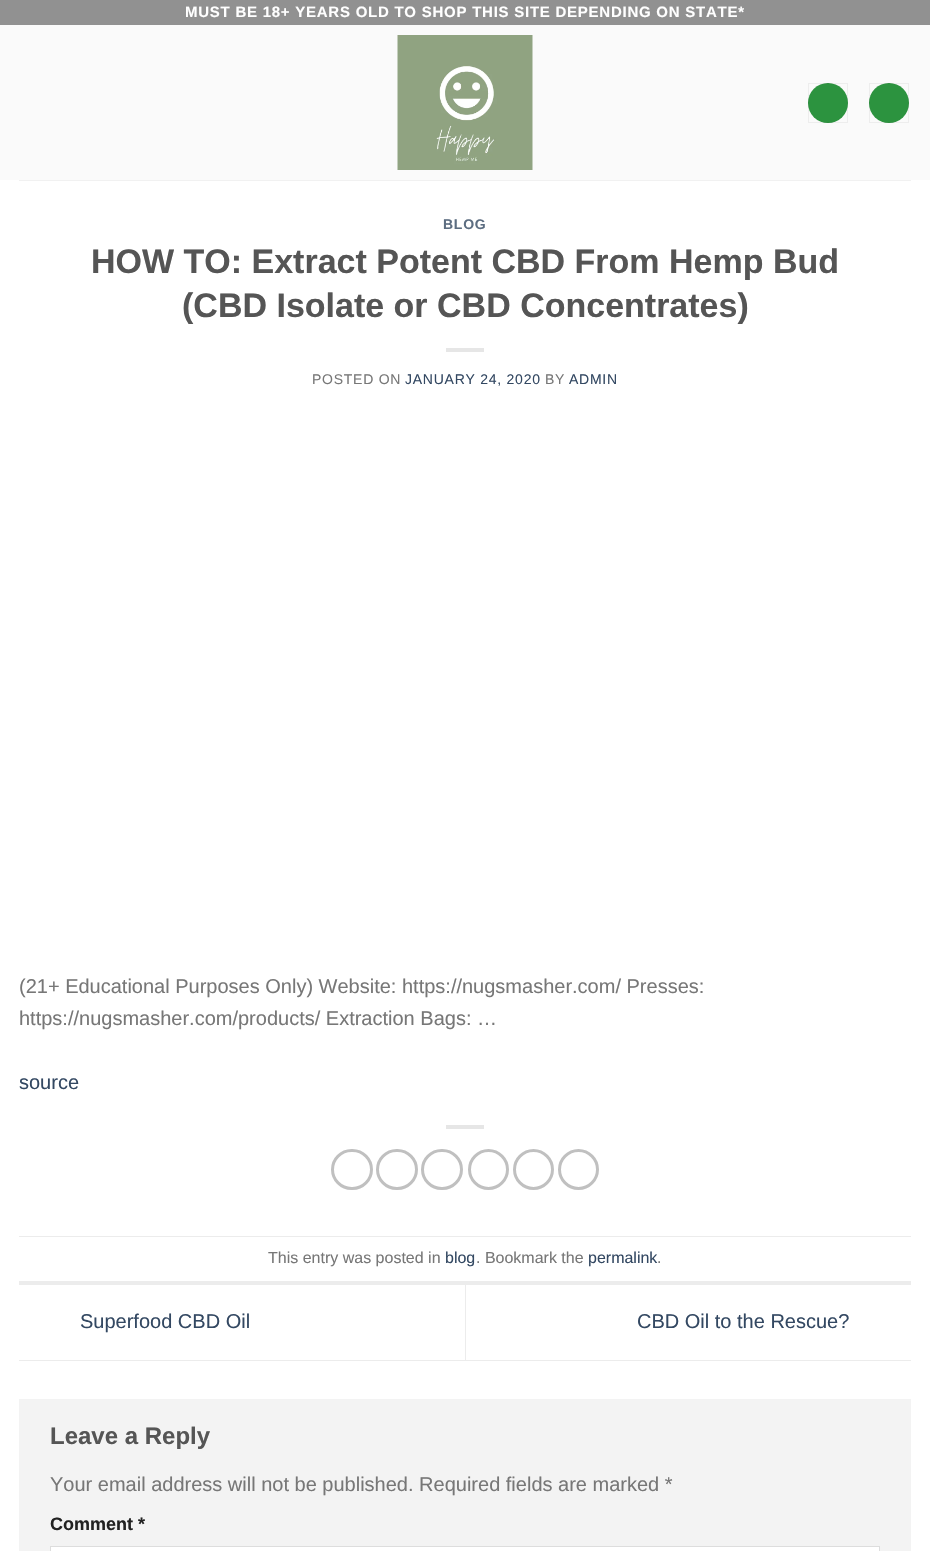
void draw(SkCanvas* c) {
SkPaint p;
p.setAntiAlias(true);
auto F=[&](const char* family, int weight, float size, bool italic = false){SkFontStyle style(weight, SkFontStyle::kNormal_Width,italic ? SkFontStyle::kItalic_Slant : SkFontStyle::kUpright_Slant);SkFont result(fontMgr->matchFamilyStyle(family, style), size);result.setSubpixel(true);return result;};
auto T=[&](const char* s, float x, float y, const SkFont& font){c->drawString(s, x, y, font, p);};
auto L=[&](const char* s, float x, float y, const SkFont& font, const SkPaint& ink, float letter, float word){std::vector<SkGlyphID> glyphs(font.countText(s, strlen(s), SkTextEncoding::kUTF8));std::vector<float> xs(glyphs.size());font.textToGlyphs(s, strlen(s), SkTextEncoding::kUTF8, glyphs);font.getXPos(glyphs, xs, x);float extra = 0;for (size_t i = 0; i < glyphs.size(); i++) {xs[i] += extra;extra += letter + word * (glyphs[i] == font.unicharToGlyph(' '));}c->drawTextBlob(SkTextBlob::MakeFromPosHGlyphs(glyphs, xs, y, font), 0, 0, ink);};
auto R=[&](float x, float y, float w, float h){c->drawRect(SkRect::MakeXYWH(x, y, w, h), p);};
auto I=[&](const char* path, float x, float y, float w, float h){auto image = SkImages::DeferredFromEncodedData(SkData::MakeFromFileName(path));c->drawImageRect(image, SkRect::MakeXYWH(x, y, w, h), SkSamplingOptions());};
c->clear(0xffffffff);
p.setColor(0xff919191);
R(0,0,930,25);
auto f1 = F("Liberation Sans",700,15);
p.setColor(0xffffffff);
L("MUST BE 18+ YEARS OLD TO SHOP THIS SITE DEPENDING ON STATE*",185,17,f1,p,.75,0);
p.setColor(0xfffafafa);
R(0,25,930,155);
I("1.png",397,35,136,135);
p.setColor(0xff2c933f);
c->drawCircle(828,103,20,p);
p.setStroke(true);
p.setStrokeWidth(1);
p.setColor(0x0d000000);
c->drawRect(SkRect::MakeXYWH(808.5,83.5,39,39),p);
p.setStroke(false);
p.setColor(0xff2c933f);
c->drawCircle(889,103,20,p);
p.setStroke(true);
p.setColor(0x0d000000);
c->drawRect(SkRect::MakeXYWH(869.5,83.5,39,39),p);
p.setStroke(false);
p.setColor(0xfff1f1f1);
R(19,180,892,1);
auto f2 = F("Liberation Sans",700,14);
p.setColor(0xff5c6d81);
L("BLOG",443,229,f2,p,.75,0);
auto f3 = F("Liberation Sans",700,34);
p.setColor(0xff555555);
T("HOW TO: Extract Potent CBD From Hemp Bud",91,273,f3);
T("(CBD Isolate or CBD Concentrates)",182,317,f3);
p.setColor(0xffe6e6e6);
R(446,348,38,4);
auto f4 = F("Liberation Sans",400,14);
p.setColor(0xff777777);
L("POSTED ON",312,384,f4,p,.75,0);
p.setColor(0xff334862);
L("JANUARY 24, 2020",405,384,f4,p,.75,0);
p.setColor(0xff777777);
L("BY",545,384,f4,p,.75,0);
p.setColor(0xff334862);
L("ADMIN",569,384,f4,p,.75,0);
auto f5 = F("Liberation Sans",400,20);
p.setColor(0xff777777);
T("(21+ Educational Purposes Only) Website: https://nugsmasher.com/ Presses:",19,993,f5);
T("https://nugsmasher.com/products/ Extraction Bags: …",19,1025,f5);
p.setColor(0xff334862);
T("source",19,1089,f5);
p.setColor(0xffe6e6e6);
R(446,1125,38,4);
p.setStroke(true);
p.setStrokeWidth(3);
p.setColor(0xffc0c0c0);
c->drawRoundRect(SkRect::MakeXYWH(332.5,1150.5,39,38),19,19,p);
c->drawRoundRect(SkRect::MakeXYWH(377.5,1150.5,39,38),19,19,p);
c->drawRoundRect(SkRect::MakeXYWH(422.5,1150.5,39,38),19,19,p);
c->drawCircle(488.5,1169.5,19,p);
c->drawCircle(533.5,1169.5,19,p);
c->drawCircle(578.5,1169.5,19,p);
p.setStroke(false);
p.setColor(0xffececec);
R(19,1236,892,1);
R(19,1281,892,4);
auto f6 = F("Liberation Sans",400,16);
p.setColor(0xff777777);
T("This entry was posted in",268,1263,f6);
p.setColor(0xff334862);
T("blog",445,1263,f6);
p.setColor(0xff777777);
T(". Bookmark the",476,1263,f6);
p.setColor(0xff334862);
T("permalink",588,1263,f6);
p.setColor(0xff777777);
T(".",657,1263,f6);
p.setColor(0xffececec);
R(19,1360,892,1);
p.setColor(0xff334862);
T("Superfood CBD Oil",80,1328,f5);
p.setColor(0xffececec);
R(465,1285,1,75);
p.setColor(0xff334862);
T("CBD Oil to the Rescue?",637,1328,f5);
p.setColor(0xfff3f3f3);
R(19,1399,892,152);
auto f7 = F("Liberation Sans",700,24);
p.setColor(0xff555555);
T("Leave a Reply",50,1444,f7);
p.setColor(0xff777777);
T("Your email address will not be published. Required fields are marked *",50,1491,f5);
auto f8 = F("Liberation Sans",700,18);
p.setColor(0xff222222);
T("Comment *",50,1530,f8);
p.setColor(0xffffffff);
c->drawRect(SkRect::MakeXYWH(50.5,1546.5,829,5),p);
p.setStroke(true);
p.setStrokeWidth(1);
p.setColor(0xffdddddd);
c->drawRect(SkRect::MakeXYWH(50.5,1546.5,829,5),p);
}
